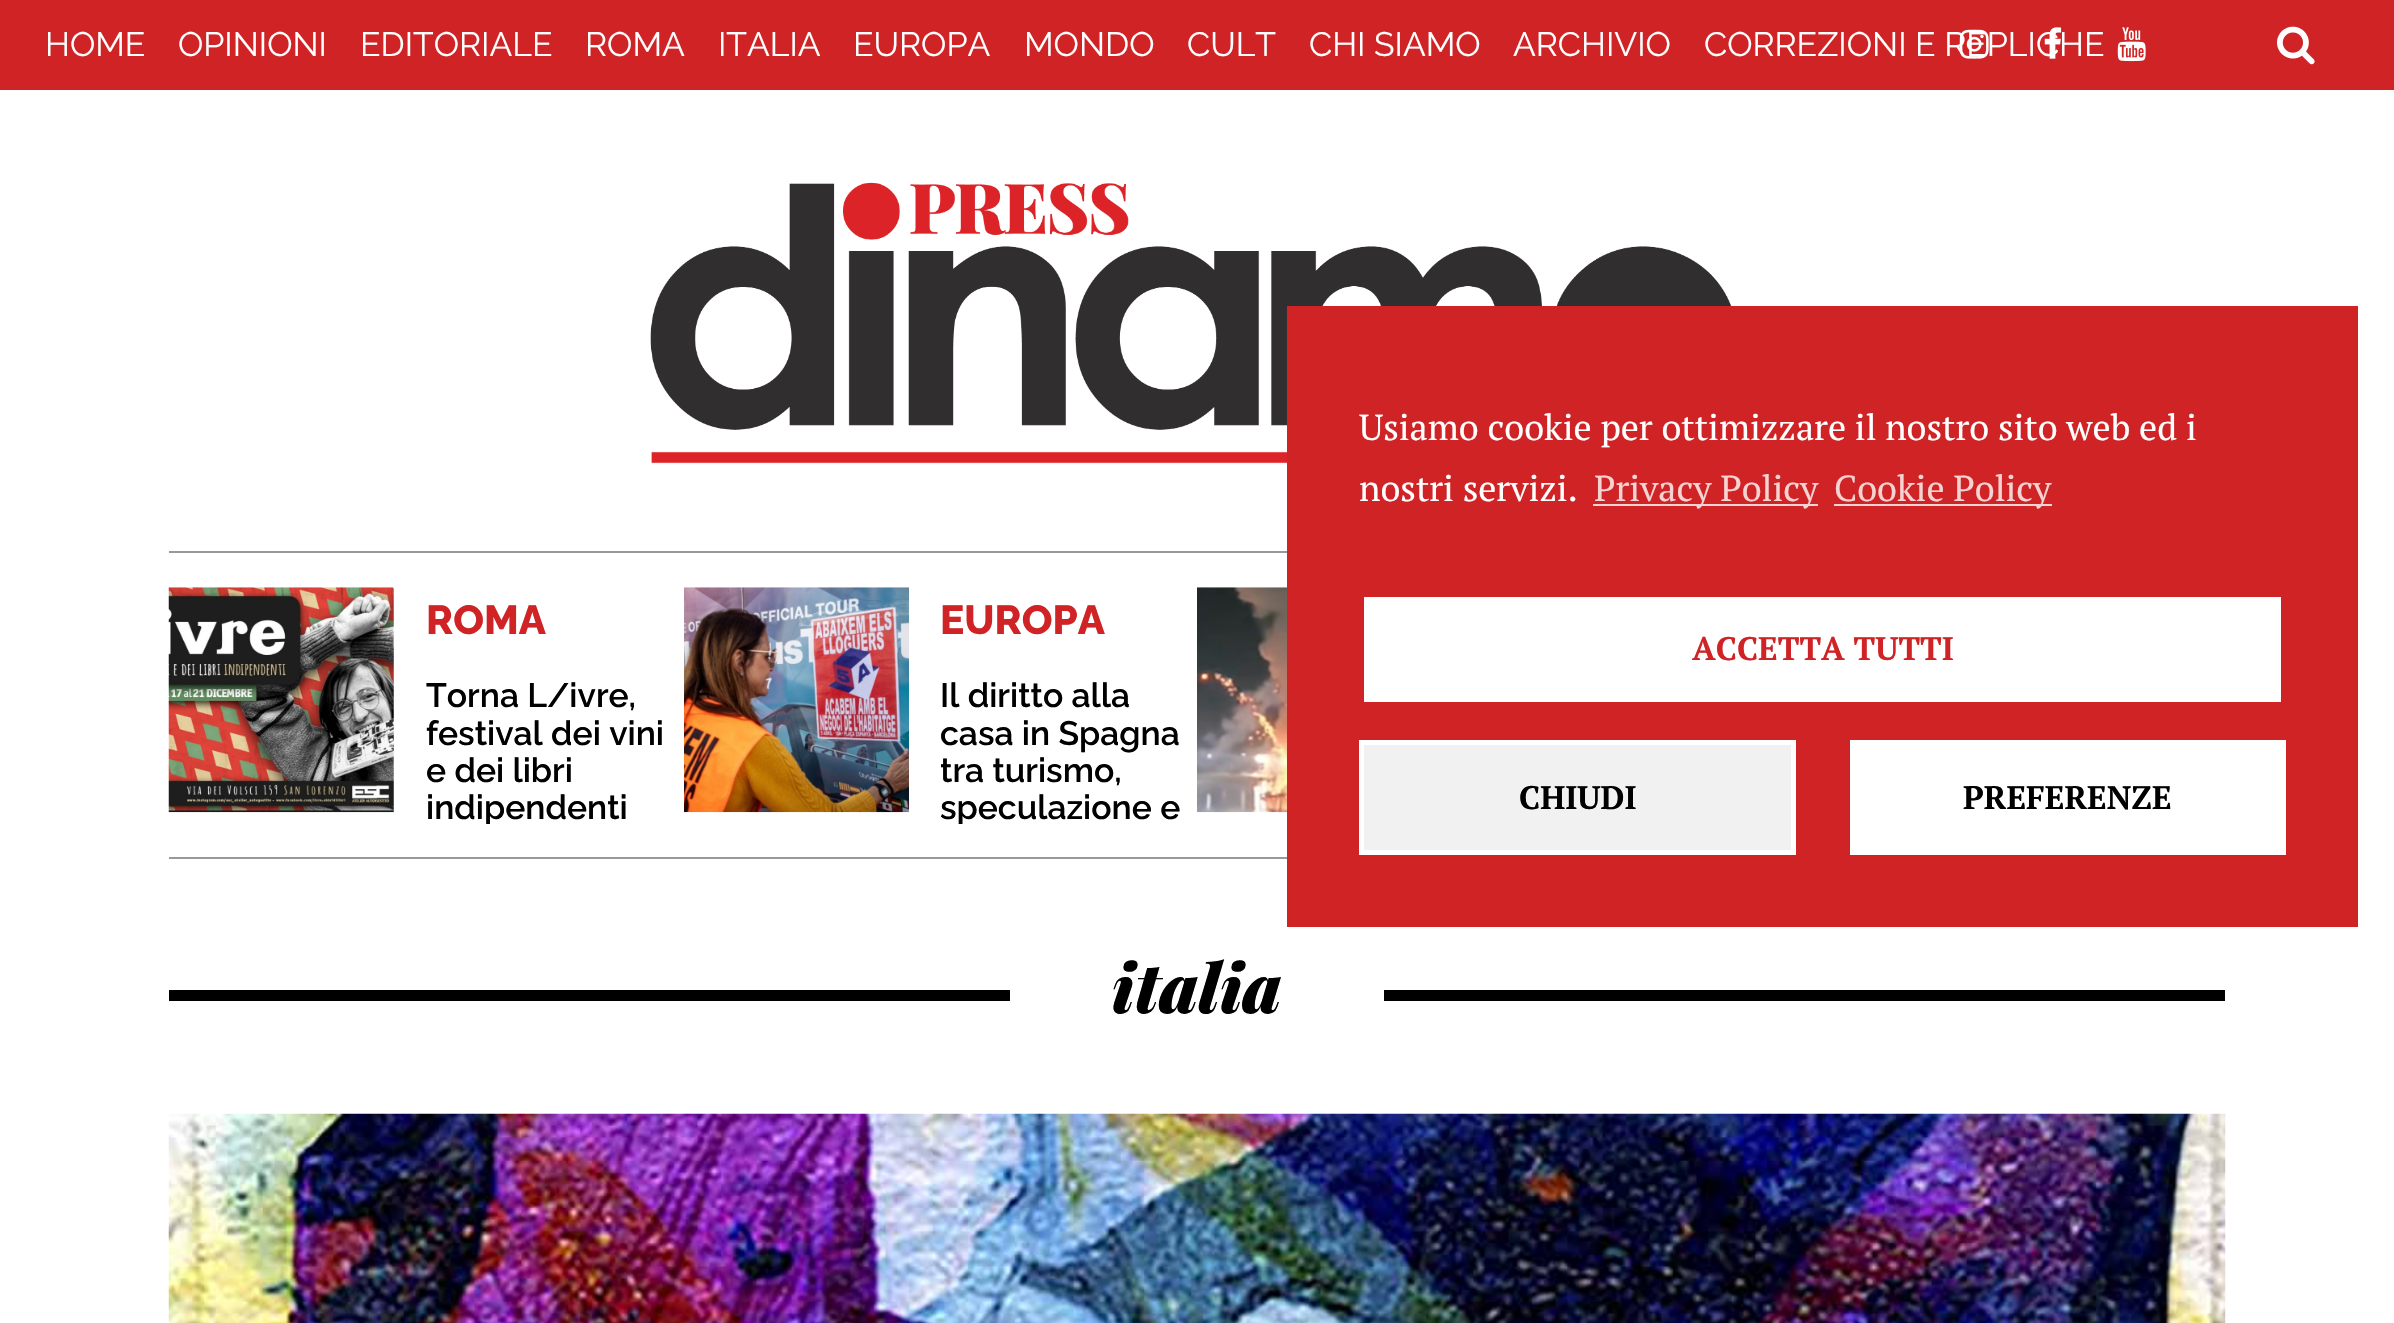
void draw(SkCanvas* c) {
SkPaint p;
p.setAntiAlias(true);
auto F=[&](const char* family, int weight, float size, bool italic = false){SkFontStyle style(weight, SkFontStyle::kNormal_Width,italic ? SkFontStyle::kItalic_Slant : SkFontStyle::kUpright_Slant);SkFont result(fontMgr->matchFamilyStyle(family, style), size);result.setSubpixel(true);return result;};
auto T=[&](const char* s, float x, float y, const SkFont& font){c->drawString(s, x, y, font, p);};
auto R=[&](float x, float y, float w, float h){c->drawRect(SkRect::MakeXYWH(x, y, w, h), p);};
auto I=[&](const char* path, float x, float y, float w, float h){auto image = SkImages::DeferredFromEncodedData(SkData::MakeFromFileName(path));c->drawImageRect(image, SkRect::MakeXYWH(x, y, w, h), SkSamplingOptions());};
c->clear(0xffffffff);
p.setColor(0xffcf2325);
R(0,0,2394,90);
auto f1 = F("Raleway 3",100,33.75);
p.setColor(0xffffffff);
T("CORREZIONI E REPLICHE",1704,56,f1);
I("1.png",1959,29,30,30);
I("2.png",2044,27,18,32);
I("3.png",2117,27,29,35);
I("4.png",2277,26,38,39);
T("HOME",45,56,f1);
T("OPINIONI",178,56,f1);
T("EDITORIALE",360,56,f1);
T("ROMA",585,56,f1);
T("ITALIA",718,56,f1);
T("EUROPA",853,56,f1);
T("MONDO",1024,56,f1);
T("CULT",1187,56,f1);
T("CHI SIAMO",1309,56,f1);
T("ARCHIVIO",1513,56,f1);
I("5.png",650,182,1082,282);
p.setColor(0xff999999);
R(169,551,1118,2);
R(169,857,1118,2);
I("6.png",168,587,226,226);
auto f2 = F("Raleway",100,40.5);
p.setColor(0xffcf2325);
T("ROMA",426,634,f2);
auto f3 = F("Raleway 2",100,33.75);
p.setColor(0xff000000);
T("Torna L/ivre,",426,707,f3);
T("festival dei vini",426,745,f3);
T("e dei libri",426,782,f3);
c->save();
c->clipRect(SkRect::MakeXYWH(425,677,248,147));
T("indipendenti",426,819,f3);
c->restore();
I("7.png",684,587,225,226);
p.setColor(0xffcf2325);
T("EUROPA",940,634,f2);
p.setColor(0xff000000);
T("Il diritto alla",940,707,f3);
T("casa in Spagna",940,745,f3);
c->save();
c->clipRect(SkRect::MakeXYWH(941,677,245,147));
T("tra turismo,",940,782,f3);
T("speculazione e",940,819,f3);
c->restore();
I("8.png",1197,587,90,226);
R(169,990,841,11);
auto f4 = F("Playfair Display",900,67.5,true);
T("italia",1112,1013,f4);
R(1384,990,841,11);
I("9.png",168,1113,2058,210);
p.setColor(0xffcf2325);
R(1287,306,1071,621);
auto f5 = F("PT Serif",400,36);
p.setColor(0xffffffff);
T("Usiamo cookie per ottimizzare il nostro sito web ed i",1359,440,f5);
T("nostri servizi.",1359,501,f5);
p.setColor(0xfff5d3d3);
R(1593,504,225,2);
T("Privacy Policy",1594,501,f5);
R(1834,504,218,2);
T("Cookie Policy",1834,501,f5);
p.setColor(0xffffffff);
R(1364,597,917,105);
auto f6 = F("PT Serif",700,32.5);
p.setColor(0xffcf2325);
T("ACCETTA TUTTI",1692,660,f6);
p.setColor(0xfff1f1f1);
c->drawRect(SkRect::MakeXYWH(1361.5,742.5,432,110),p);
p.setStroke(true);
p.setStrokeWidth(5);
p.setColor(0xffffffff);
c->drawRect(SkRect::MakeXYWH(1361.5,742.5,432,110),p);
p.setStroke(false);
p.setColor(0xff000000);
T("CHIUDI",1519,809,f6);
p.setColor(0xffffffff);
R(1850,740,436,115);
p.setColor(0xff000000);
T("PREFERENZE",1963,809,f6);
}
